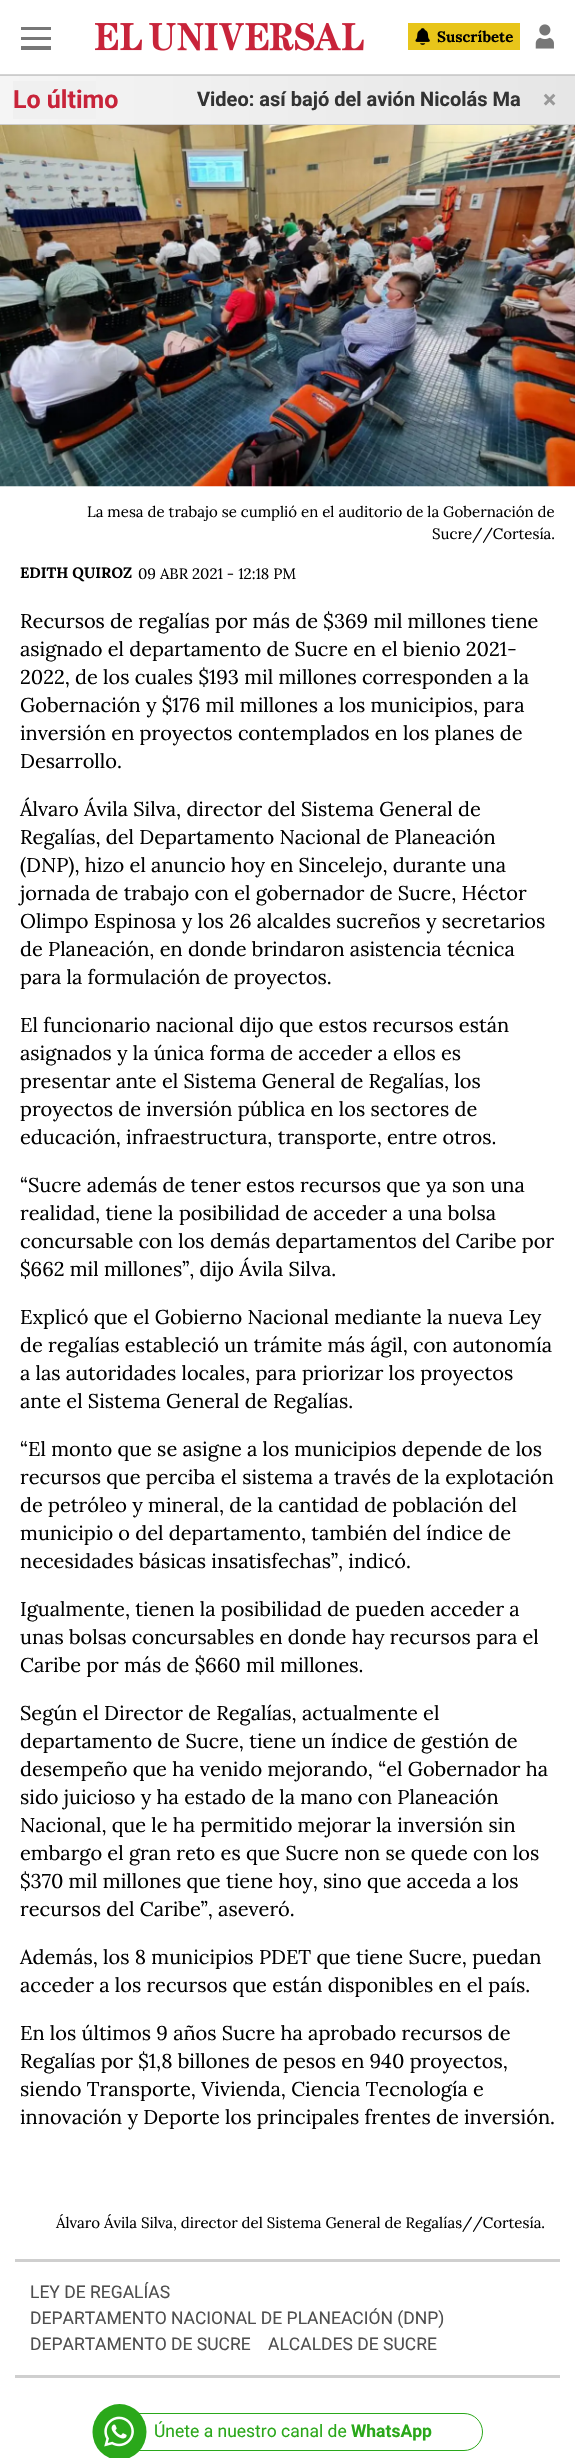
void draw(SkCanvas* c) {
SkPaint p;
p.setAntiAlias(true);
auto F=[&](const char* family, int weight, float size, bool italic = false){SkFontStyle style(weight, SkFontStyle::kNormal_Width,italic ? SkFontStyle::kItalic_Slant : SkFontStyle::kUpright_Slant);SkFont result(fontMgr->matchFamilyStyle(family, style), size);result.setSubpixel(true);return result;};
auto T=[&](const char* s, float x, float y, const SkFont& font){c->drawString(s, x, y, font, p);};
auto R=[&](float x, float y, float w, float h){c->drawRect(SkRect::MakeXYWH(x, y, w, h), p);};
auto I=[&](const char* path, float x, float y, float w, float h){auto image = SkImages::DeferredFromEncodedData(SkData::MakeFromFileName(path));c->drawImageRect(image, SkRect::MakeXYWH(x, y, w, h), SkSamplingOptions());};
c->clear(0xffffffff);
p.setColor(0xffd4d4d4);
R(0,74,575,1);
p.setColor(0xff777777);
R(21,27,30,3);
R(21,37,30,3);
R(21,46,30,4);
I("1.png",95,23,269,28);
p.setColor(0xffe8c51a);
R(408,23,112,27);
I("2.png",415,28,15,17);
auto f1 = F("Lora",700,15);
p.setColor(0xff000000);
T("Suscríbete",437,42,f1);
I("3.png",535,24,19,25);
{
const SkColor colors[] = {0xfff5f5f5,0xffe6e6e6};
const float stops[] = {0,1};
const SkPoint ends[] = {{0,100}, {575,100}};
p.setShader(SkGradientShader::MakeLinear(ends, colors, stops, 2, SkTileMode::kClamp));
p.setAlpha(255);
}
R(0,76,575,48);
p.setShader(nullptr);
p.setColor(0xffcccccc);
R(0,75,575,1);
R(0,124,575,1);
{
const SkColor colors[] = {0xfff0f0f0,0x00f0f0f0};
const float stops[] = {.8,1};
const SkPoint ends[] = {{-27,100}, {168,100}};
p.setShader(SkGradientShader::MakeLinear(ends, colors, stops, 2, SkTileMode::kClamp));
p.setAlpha(255);
}
R(13,81,83,38);
auto f2 = F("Roboto",700,25);
p.setShader(nullptr);
p.setColor(0xffc8243a);
T("Lo último",13,108,f2);
auto f3 = F("Roboto",700,20);
p.setColor(0xff333333);
T("Video: así bajó del avión Nicolás Ma",197,106,f3);
p.setColor(0xff999999);
T("×",543,108,f2);
I("4.png",0,125,575,362);
auto f4 = F("Lora",400,15);
p.setColor(0xff000000);
T("La mesa de trabajo se cumplió en el auditorio de la Gobernación de",87,517,f4);
T("Sucre//Cortesía.",432,539,f4);
T("EDITH QUIROZ",20,578,f1);
T("09 ABR 2021 - 12:18 PM",138,579,f4);
auto f5 = F("Lora",400,20);
T("Recursos de regalías por más de $369 mil millones tiene",20,628,f5);
T("asignado el departamento de Sucre en el bienio 2021-",20,656,f5);
T("2022, de los cuales $193 mil millones corresponden a la",20,684,f5);
T("Gobernación y $176 mil millones a los municipios, para",20,712,f5);
T("inversión en proyectos contemplados en los planes de",20,740,f5);
T("Desarrollo.",20,768,f5);
T("Álvaro Ávila Silva, director del Sistema General de",20,816,f5);
T("Regalías, del Departamento Nacional de Planeación",20,844,f5);
T("(DNP), hizo el anuncio hoy en Sincelejo, durante una",20,872,f5);
T("jornada de trabajo con el gobernador de Sucre, Héctor",20,900,f5);
T("Olimpo Espinosa y los 26 alcaldes sucreños y secretarios",20,928,f5);
T("de Planeación, en donde brindaron asistencia técnica",20,956,f5);
T("para la formulación de proyectos.",20,984,f5);
T("El funcionario nacional dijo que estos recursos están",20,1032,f5);
T("asignados y la única forma de acceder a ellos es",20,1060,f5);
T("presentar ante el Sistema General de Regalías, los",20,1088,f5);
T("proyectos de inversión pública en los sectores de",20,1116,f5);
T("educación, infraestructura, transporte, entre otros.",20,1144,f5);
T("“Sucre además de tener estos recursos que ya son una",20,1192,f5);
T("realidad, tiene la posibilidad de acceder a una bolsa",20,1220,f5);
T("concursable con los demás departamentos del Caribe por",20,1248,f5);
T("$662 mil millones”, dijo Ávila Silva.",20,1276,f5);
T("Explicó que el Gobierno Nacional mediante la nueva Ley",20,1324,f5);
T("de regalías estableció un trámite más ágil, con autonomía",20,1352,f5);
T("a las autoridades locales, para priorizar los proyectos",20,1380,f5);
T("ante el Sistema General de Regalías.",20,1408,f5);
T("“El monto que se asigne a los municipios depende de los",20,1456,f5);
T("recursos que perciba el sistema a través de la explotación",20,1484,f5);
T("de petróleo y mineral, de la cantidad de población del",20,1512,f5);
T("municipio o del departamento, también del índice de",20,1540,f5);
T("necesidades básicas insatisfechas”, indicó.",20,1568,f5);
T("Igualmente, tienen la posibilidad de pueden acceder a",20,1616,f5);
T("unas bolsas concursables en donde hay recursos para el",20,1644,f5);
T("Caribe por más de $660 mil millones.",20,1672,f5);
T("Según el Director de Regalías, actualmente el",20,1720,f5);
T("departamento de Sucre, tiene un índice de gestión de",20,1748,f5);
T("desempeño que ha venido mejorando, “el Gobernador ha",20,1776,f5);
T("sido juicioso y ha estado de la mano con Planeación",20,1804,f5);
T("Nacional, que le ha permitido mejorar la inversión sin",20,1832,f5);
T("embargo el gran reto es que Sucre non se quede con los",20,1860,f5);
T("$370 mil millones que tiene hoy, sino que acceda a los",20,1888,f5);
T("recursos del Caribe”, aseveró.",20,1916,f5);
T("Además, los 8 municipios PDET que tiene Sucre, puedan",20,1964,f5);
T("acceder a los recursos que están disponibles en el país.",20,1992,f5);
T("En los últimos 9 años Sucre ha aprobado recursos de",20,2040,f5);
T("Regalías por $1,8 billones de pesos en 940 proyectos,",20,2068,f5);
T("siendo Transporte, Vivienda, Ciencia Tecnología e",20,2096,f5);
T("innovación y Deporte los principales frentes de inversión.",20,2124,f5);
T("Álvaro Ávila Silva, director del Sistema General de Regalías//Cortesía.",56,2228,f4);
p.setColor(0xffcfcfcf);
R(15,2259,545,3);
R(15,2375,545,3);
auto f6 = F("Roboto",400,17.5);
p.setColor(0xff4f4f4f);
T("LEY DE REGALÍAS",30,2298,f6);
T("DEPARTAMENTO NACIONAL DE PLANEACIÓN (DNP)",30,2324,f6);
T("DEPARTAMENTO DE SUCRE",30,2350,f6);
T("ALCALDES DE SUCRE",268,2350,f6);
p.setStroke(true);
p.setStrokeWidth(1);
p.setColor(0xff2aa81a);
c->drawRoundRect(SkRect::MakeXYWH(103.5,2413.5,379,37),18.5,18.5,p);
p.setStroke(false);
c->drawOval(SkRect::MakeXYWH(92.5,2404,54,56),p);
I("5.png",104,2416,30,31);
T("Únete a nuestro canal de",154,2437,f6);
auto f7 = F("Roboto",700,17.5);
T("WhatsApp",351,2437,f7);
}
